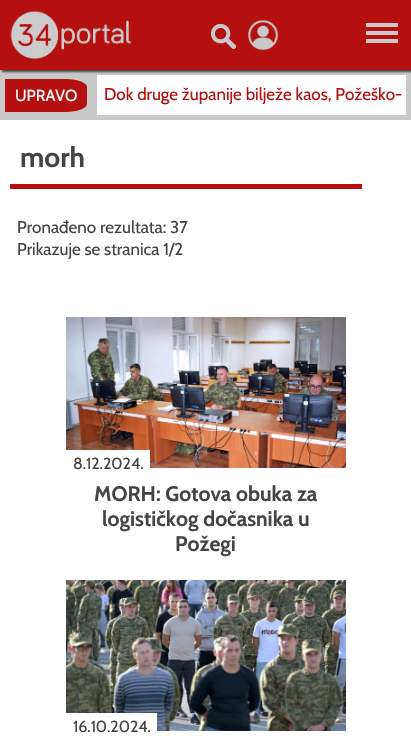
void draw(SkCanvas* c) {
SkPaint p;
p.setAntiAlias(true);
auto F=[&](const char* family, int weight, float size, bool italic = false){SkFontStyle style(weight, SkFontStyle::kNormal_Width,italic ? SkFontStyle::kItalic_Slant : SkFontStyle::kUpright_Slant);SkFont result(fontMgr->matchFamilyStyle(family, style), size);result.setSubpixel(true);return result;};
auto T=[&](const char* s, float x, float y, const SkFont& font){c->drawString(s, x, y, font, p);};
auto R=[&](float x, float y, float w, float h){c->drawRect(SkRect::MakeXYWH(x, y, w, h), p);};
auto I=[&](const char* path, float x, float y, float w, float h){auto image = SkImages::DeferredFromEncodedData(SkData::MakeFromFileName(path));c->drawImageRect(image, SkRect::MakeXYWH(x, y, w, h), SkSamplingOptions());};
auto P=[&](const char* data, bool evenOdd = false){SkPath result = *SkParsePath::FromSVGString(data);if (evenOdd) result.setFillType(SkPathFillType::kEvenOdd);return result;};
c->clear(0xffc9c9c9);
p.setColor(0xffffffff);
R(97,75,309,40);
p.setColor(0xff444444);
p.setMaskFilter(SkMaskFilter::MakeBlur(kNormal_SkBlurStyle, 1));
c->drawRect(SkRect::MakeXYWH(2,2,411,70),p);
p.setMaskFilter(nullptr);
p.setColor(0xffb51010);
R(0,0,411,70);
I("1.png",10,10,122,50);
I("2.png",211,24,25,25);
I("3.png",248,20,31,31);
p.setColor(0xffc9c9c9);
R(366,23,32,4);
R(366,31,32,4);
R(366,39,32,4);
p.setColor(0xffb51010);
c->drawPath(P("M5 79h61c12 0 21 4 21 8v17c0 4-9 8-21 8h-61z"),p);
auto f1 = F("Cabin",400,16);
p.setColor(0xffffffff);
T("UPRAVO",15,101,f1);
auto f2 = F("Cabin",400,17);
p.setColor(0xffb51010);
T("Dok druge županije bilježe kaos, Požeško-",104,100,f2);
p.setColor(0xffffffff);
R(0,120,411,618);
auto f3 = F("Cabin",700,28);
p.setColor(0xff444444);
T("morh",20,167,f3);
p.setColor(0xffb51010);
R(10,184,352,5);
p.setColor(0xff444444);
T("Pronađeno rezultata: 37",17,233,f2);
T("Prikazuje se stranica 1/2",17,255,f2);
I("4.png",66,317,280,151);
p.setColor(0xffffffff);
R(66,450,84,18);
p.setColor(0xff444444);
T("8.12.2024.",73,469,f1);
auto f4 = F("Cabin",700,21);
T("MORH: Gotova obuka za",94,501,f4);
T("logističkog dočasnika u",102,526,f4);
T("Požegi",175,551,f4);
I("5.png",66,580,280,151);
p.setColor(0xffffffff);
R(66,713,91,18);
p.setColor(0xff444444);
T("16.10.2024.",73,732,f1);
}
